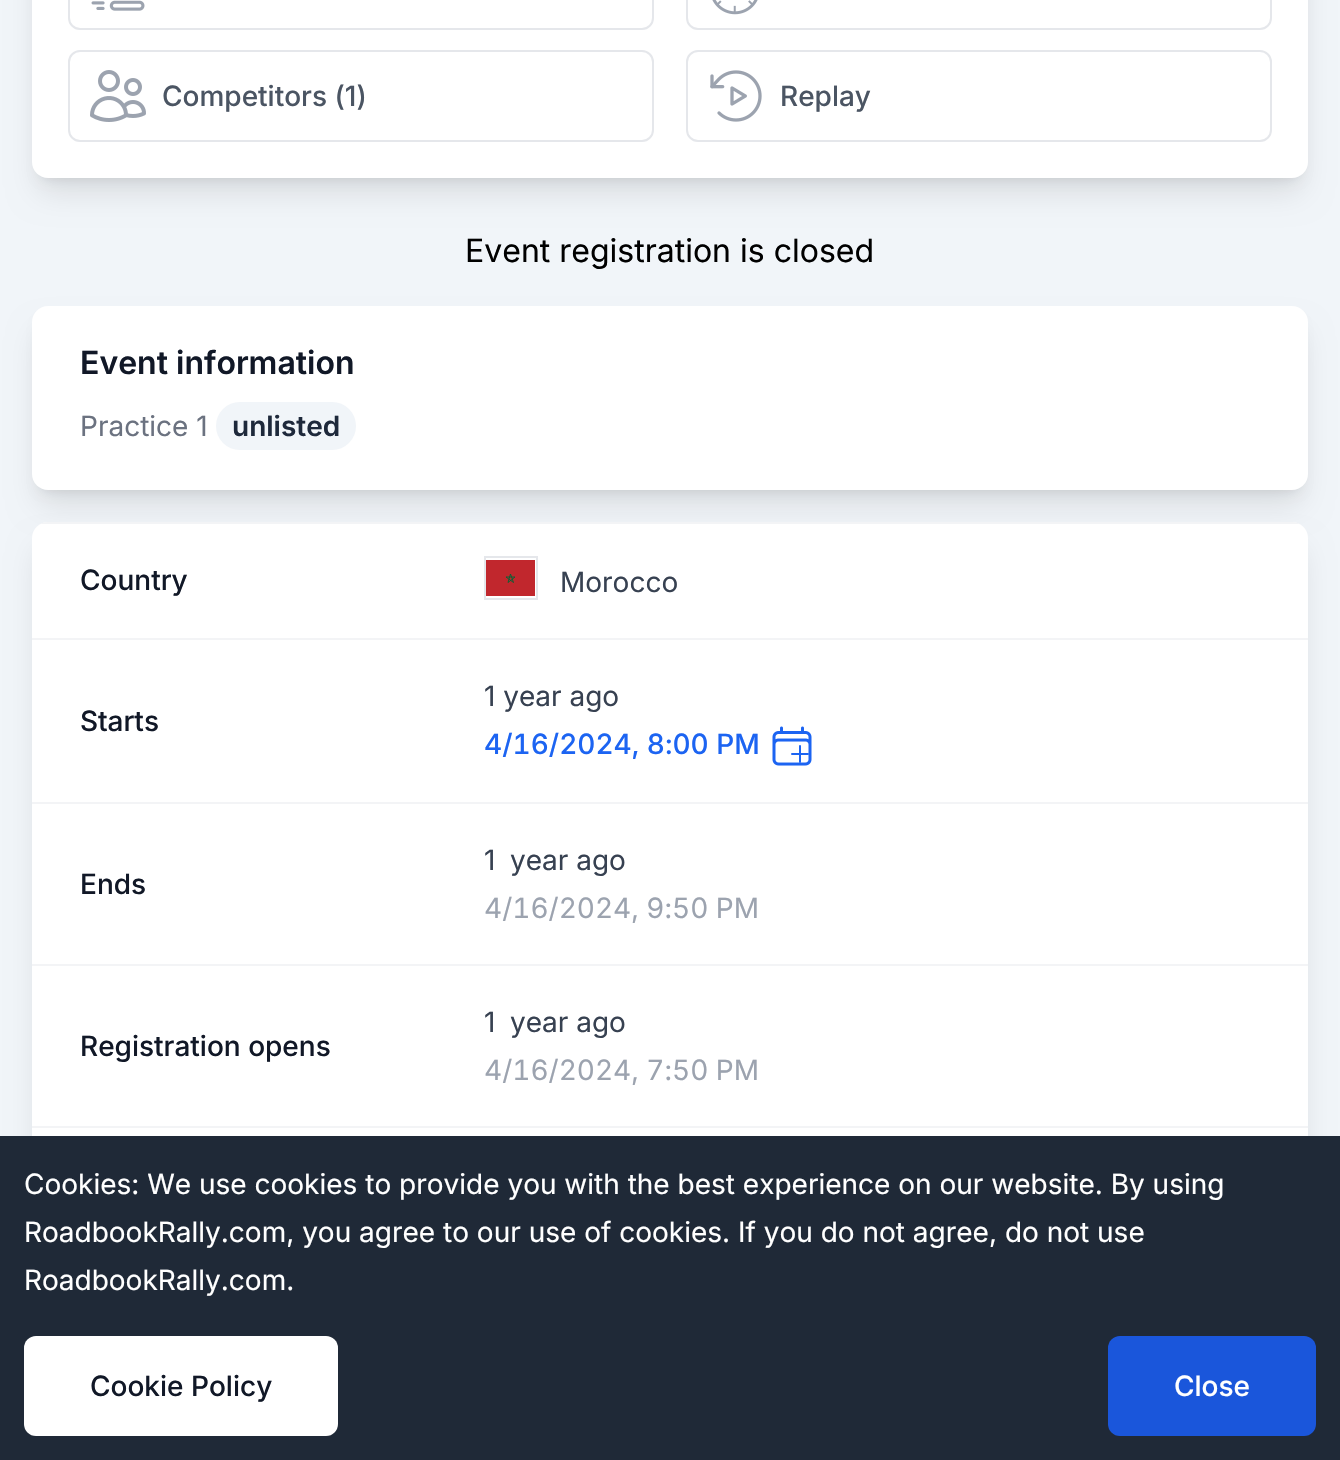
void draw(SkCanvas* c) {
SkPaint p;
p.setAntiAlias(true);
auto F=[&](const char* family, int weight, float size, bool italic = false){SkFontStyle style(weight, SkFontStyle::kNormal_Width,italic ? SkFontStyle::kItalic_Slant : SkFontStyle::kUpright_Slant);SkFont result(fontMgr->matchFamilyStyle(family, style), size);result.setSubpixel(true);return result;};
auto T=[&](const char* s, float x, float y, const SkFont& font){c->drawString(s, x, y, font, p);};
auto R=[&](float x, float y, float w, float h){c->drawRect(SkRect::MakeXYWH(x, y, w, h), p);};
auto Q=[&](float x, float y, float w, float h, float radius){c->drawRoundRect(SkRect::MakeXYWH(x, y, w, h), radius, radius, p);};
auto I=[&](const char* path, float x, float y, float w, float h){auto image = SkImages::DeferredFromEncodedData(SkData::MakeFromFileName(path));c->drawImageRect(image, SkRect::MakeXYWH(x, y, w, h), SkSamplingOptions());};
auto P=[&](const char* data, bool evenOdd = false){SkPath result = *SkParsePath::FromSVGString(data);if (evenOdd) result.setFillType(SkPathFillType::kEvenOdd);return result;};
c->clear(0xfff1f5f9);
p.setColor(0x1a000000);
p.setMaskFilter(SkMaskFilter::MakeBlur(kNormal_SkBlurStyle, 6));
c->drawRoundRect(SkRect::MakeXYWH(40,-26,1260,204),8,8,p);
p.setMaskFilter(nullptr);
p.setMaskFilter(SkMaskFilter::MakeBlur(kNormal_SkBlurStyle, 15));
c->drawRoundRect(SkRect::MakeXYWH(38,-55,1264,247),10,10,p);
p.setMaskFilter(nullptr);
p.setColor(0xffffffff);
Q(32,-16,1276,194,16);
p.setStroke(true);
p.setStrokeWidth(2);
p.setColor(0xffe5e7eb);
c->drawRoundRect(SkRect::MakeXYWH(69,-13,584,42),11,11,p);
I("1.png",91,0,54,11);
c->drawRoundRect(SkRect::MakeXYWH(687,-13,584,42),11,11,p);
I("2.png",712,0,46,15);
c->drawRoundRect(SkRect::MakeXYWH(69,51,584,90),11,11,p);
I("3.png",90,70,56,52);
auto f1 = F("Inter",500,28);
p.setStroke(false);
p.setColor(0xff4b5563);
T("Competitors (1)",162,106,f1);
p.setStroke(true);
p.setColor(0xffe5e7eb);
c->drawRoundRect(SkRect::MakeXYWH(687,51,584,90),11,11,p);
I("4.png",710,70,52,52);
p.setStroke(false);
p.setColor(0xff4b5563);
T("Replay",780,106,f1);
auto f2 = F("Inter",400,32);
p.setColor(0xff000000);
T("Event registration is closed",465,262,f2);
p.setColor(0x1a000000);
p.setMaskFilter(SkMaskFilter::MakeBlur(kNormal_SkBlurStyle, 6));
c->drawRoundRect(SkRect::MakeXYWH(40,322,1260,168),8,8,p);
p.setMaskFilter(nullptr);
p.setMaskFilter(SkMaskFilter::MakeBlur(kNormal_SkBlurStyle, 15));
c->drawRoundRect(SkRect::MakeXYWH(38,332,1264,172),10,10,p);
p.setMaskFilter(nullptr);
p.setColor(0xffffffff);
Q(32,306,1276,184,16);
auto f3 = F("Inter",600,32);
p.setColor(0xff111827);
T("Event information",80,374,f3);
auto f4 = F("Inter",400,28);
p.setColor(0xff6b7280);
T("Practice 1",80,436,f4);
p.setColor(0xfff1f5f9);
Q(216,402,140,48,24);
auto f5 = F("Inter",600,28);
p.setColor(0xff1e293b);
T("unlisted",232,436,f5);
p.setColor(0x1a000000);
p.setMaskFilter(SkMaskFilter::MakeBlur(kNormal_SkBlurStyle, 15));
c->drawRoundRect(SkRect::MakeXYWH(38,548,1264,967),10,10,p);
p.setMaskFilter(nullptr);
p.setColor(0xffffffff);
Q(32,522,1276,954,16);
c->save();
c->clipPath(P("M48 522h1244c9 0 16 7 16 16v962c0 9-7 16-16 16h-1244c-9 0-16-7-16-16v-962c0-9 7-16 16-16z"),true);
p.setColor(0xfff3f4f6);
R(32,522,1276,2);
c->restore();
p.setColor(0xff111827);
T("Country",80,590,f1);
p.setColor(0xffc1272d);
R(486,560,49,36);
p.setStroke(true);
p.setStrokeWidth(.9);
p.setColor(0xff006233);
c->drawPath(P("M510.5 574l-2.5 8.5l7-5.5h-9l7.5 5.5z"),p);
p.setStrokeWidth(2);
p.setColor(0xffe5e7eb);
c->drawRect(SkRect::MakeXYWH(485,557,52,42),p);
p.setStroke(false);
p.setColor(0xff374151);
T("Morocco",560,592,f4);
p.setColor(0xfff3f4f6);
R(32,638,1276,2);
p.setColor(0xff111827);
T("Starts",80,731,f1);
p.setColor(0xff374151);
T("1 year ago",484,706,f4);
auto f6 = F("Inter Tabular",500,28);
p.setColor(0xff1c64f2);
T("4/16/2024, 8:00 PM",484,754,f6);
I("5.png",772,726,40,40);
p.setStroke(true);
p.setStrokeCap(SkPaint::kRound_Cap);
p.setStrokeJoin(SkPaint::kRound_Join);
c->drawPath(P("M800 746v16m8-8h-16"),p);
p.setStroke(false);
p.setColor(0xfff3f4f6);
R(32,802,1276,2);
p.setColor(0xff111827);
T("Ends",80,894,f1);
p.setColor(0xff374151);
T("1",484,870,f4);
T("year ago",510,870,f4);
auto f7 = F("Inter Tabular",400,28);
p.setColor(0xff9ca3af);
T("4/16/2024, 9:50 PM",484,918,f7);
p.setColor(0xfff3f4f6);
R(32,964,1276,2);
p.setColor(0xff111827);
T("Registration opens",80,1056,f1);
p.setColor(0xff374151);
T("1",484,1032,f4);
T("year ago",510,1032,f4);
p.setColor(0xff9ca3af);
T("4/16/2024, 7:50 PM",484,1080,f7);
p.setColor(0xfff3f4f6);
R(32,1126,1276,2);
p.setColor(0xff1f2937);
R(0,1136,1340,324);
p.setColor(0xffffffff);
T("Cookies: We use cookies to provide you with the best experience on our website. By using",24,1194,f4);
T("RoadbookRally.com, you agree to our use of cookies. If you do not agree, do not use",24,1242,f4);
T("RoadbookRally.com.",24,1290,f4);
Q(24,1336,314,100,12);
p.setColor(0xff111827);
T("Cookie Policy",90,1396,f1);
p.setColor(0xff1a56db);
Q(1108,1336,208,100,12);
p.setColor(0xffffffff);
T("Close",1174,1396,f1);
}
